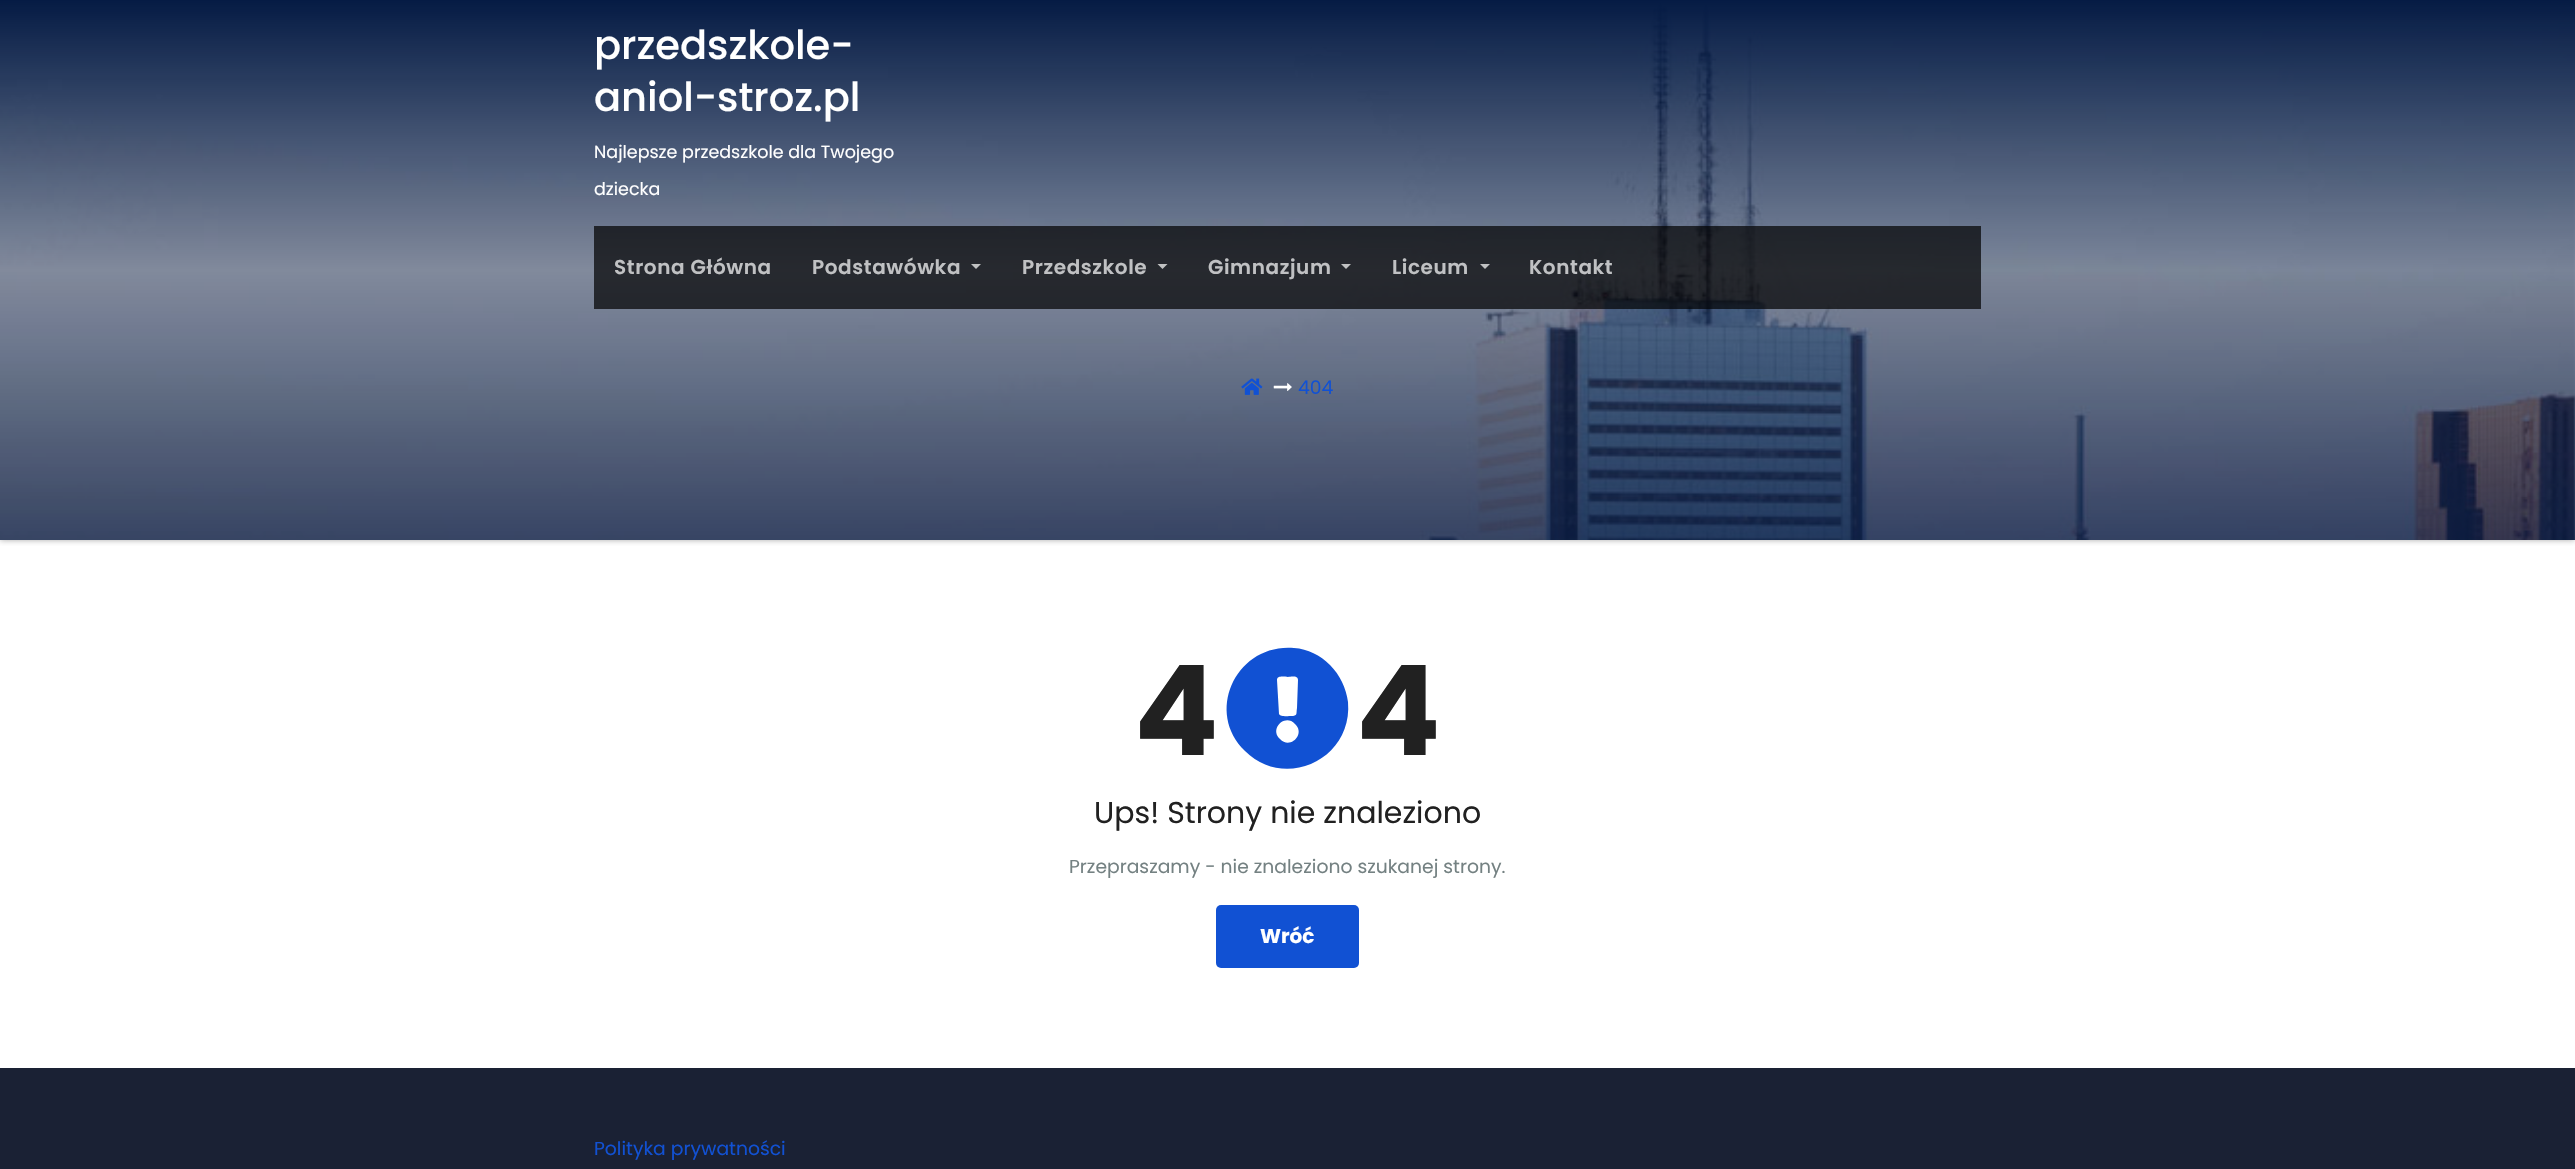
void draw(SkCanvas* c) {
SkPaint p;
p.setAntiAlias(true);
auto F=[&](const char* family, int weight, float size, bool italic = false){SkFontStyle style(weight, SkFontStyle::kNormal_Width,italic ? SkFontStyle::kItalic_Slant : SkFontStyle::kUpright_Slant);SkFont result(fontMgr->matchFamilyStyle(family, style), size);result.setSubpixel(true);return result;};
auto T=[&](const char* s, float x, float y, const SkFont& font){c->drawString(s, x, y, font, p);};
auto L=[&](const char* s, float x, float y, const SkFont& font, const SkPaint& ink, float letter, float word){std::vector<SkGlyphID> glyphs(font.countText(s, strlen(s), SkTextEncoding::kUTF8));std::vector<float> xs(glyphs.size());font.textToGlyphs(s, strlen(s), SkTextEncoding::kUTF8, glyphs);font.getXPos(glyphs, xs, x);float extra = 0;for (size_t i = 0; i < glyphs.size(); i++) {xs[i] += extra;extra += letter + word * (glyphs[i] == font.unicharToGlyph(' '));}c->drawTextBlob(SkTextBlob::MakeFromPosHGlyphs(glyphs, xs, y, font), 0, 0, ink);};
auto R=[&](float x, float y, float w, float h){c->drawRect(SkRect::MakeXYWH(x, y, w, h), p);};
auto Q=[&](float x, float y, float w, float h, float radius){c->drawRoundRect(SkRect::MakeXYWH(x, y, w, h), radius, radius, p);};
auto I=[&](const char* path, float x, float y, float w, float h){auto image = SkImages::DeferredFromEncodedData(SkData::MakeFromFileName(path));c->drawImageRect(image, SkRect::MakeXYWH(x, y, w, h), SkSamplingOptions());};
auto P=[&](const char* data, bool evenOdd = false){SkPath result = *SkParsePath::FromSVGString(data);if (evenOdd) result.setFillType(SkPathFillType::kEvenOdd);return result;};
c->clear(0xffffffff);
c->save();
c->clipRect(SkRect::MakeXYWH(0,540,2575,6));
p.setColor(0xffaaaaaa);
p.setMaskFilter(SkMaskFilter::MakeBlur(kNormal_SkBlurStyle, 3));
c->drawRect(SkRect::MakeXYWH(0,0,2575,540),p);
p.setMaskFilter(nullptr);
c->restore();
I("1.png",0,3,2575,537);
{
const SkColor colors[] = {0xff051b44,0x80051b44,0xcc051b44};
const float stops[] = {0,.5,1};
const SkPoint ends[] = {{1288,0}, {1288,540}};
p.setShader(SkGradientShader::MakeLinear(ends, colors, stops, 3, SkTileMode::kClamp));
p.setAlpha(255);
}
R(0,0,2575,540);
auto f1 = F("Poppins",500,40);
p.setShader(nullptr);
p.setColor(0xffffffff);
T("przedszkole-",594,59,f1);
T("aniol-stroz.pl",594,111,f1);
auto f2 = F("Poppins",400,17.5);
T("Najlepsze przedszkole dla Twojego",594,158,f2);
T("dziecka",594,195,f2);
p.setColor(0xb3000000);
R(594,226,1387,83);
auto f3 = F("Poppins",600,20);
p.setColor(0xffc0c1c3);
L("Strona Główna",614,274,f3,p,.6,0);
L("Podstawówka",812,274,f3,p,.6,0);
p.setColor(0xffc0c1c2);
c->drawPath(P("M971 264h10l-5 5z"),p);
p.setColor(0xffc0c1c3);
L("Przedszkole",1022,274,f3,p,.6,0);
p.setColor(0xffc0c1c2);
c->drawPath(P("M1157.5 264h10l-5 5z"),p);
p.setColor(0xffc0c1c3);
L("Gimnazjum",1208,274,f3,p,.6,0);
p.setColor(0xffc0c1c2);
c->drawPath(P("M1341 264h10l-5 5z"),p);
p.setColor(0xffc0c1c3);
L("Liceum",1392,274,f3,p,.6,0);
p.setColor(0xffc0c1c2);
c->drawPath(P("M1480 264h10l-5 5z"),p);
p.setColor(0xffc0c1c3);
L("Kontakt",1529,274,f3,p,.6,0);
I("2.png",1241,378,22,17);
I("3.png",1273,383,19,8);
auto f4 = F("Poppins",400,18.75);
p.setColor(0xff1151d3);
T("404",1298,394,f4);
auto f5 = F("Poppins",700,125);
p.setColor(0xff212121);
T("4",1134,755,f5);
p.setColor(0xff1151d3);
c->drawPath(P("M1330 665c10 10 16 23 18 37c5 57-63 89-103 49c-41-40-8-108 49-103c14 1 26 7 36 17zm-35 59c-10-11-26 5-15 15c10 11 26-5 15-15zm-18-44l2 34c1 3 10 2 12 2c7 0 5-2 6-8l1-28c0-5-8-3-10-3c-3 0-11-2-11 3z"),p);
p.setColor(0xff212121);
T("4",1356,755,f5);
auto f6 = F("Poppins",400,30);
T("Ups! Strony nie znaleziono",1094,823,f6);
p.setColor(0xff748182);
T("Przepraszamy - nie znaleziono szukanej strony.",1069,873,f4);
p.setColor(0xff1151d3);
Q(1216,905,143,63,5);
auto f7 = F("Poppins",700,20);
p.setColor(0xffffffff);
T("Wróć",1260,943,f7);
p.setColor(0xff1a2134);
R(0,1068,2575,101);
p.setColor(0xff1151d3);
T("Polityka prywatności",594,1155,f4);
}
